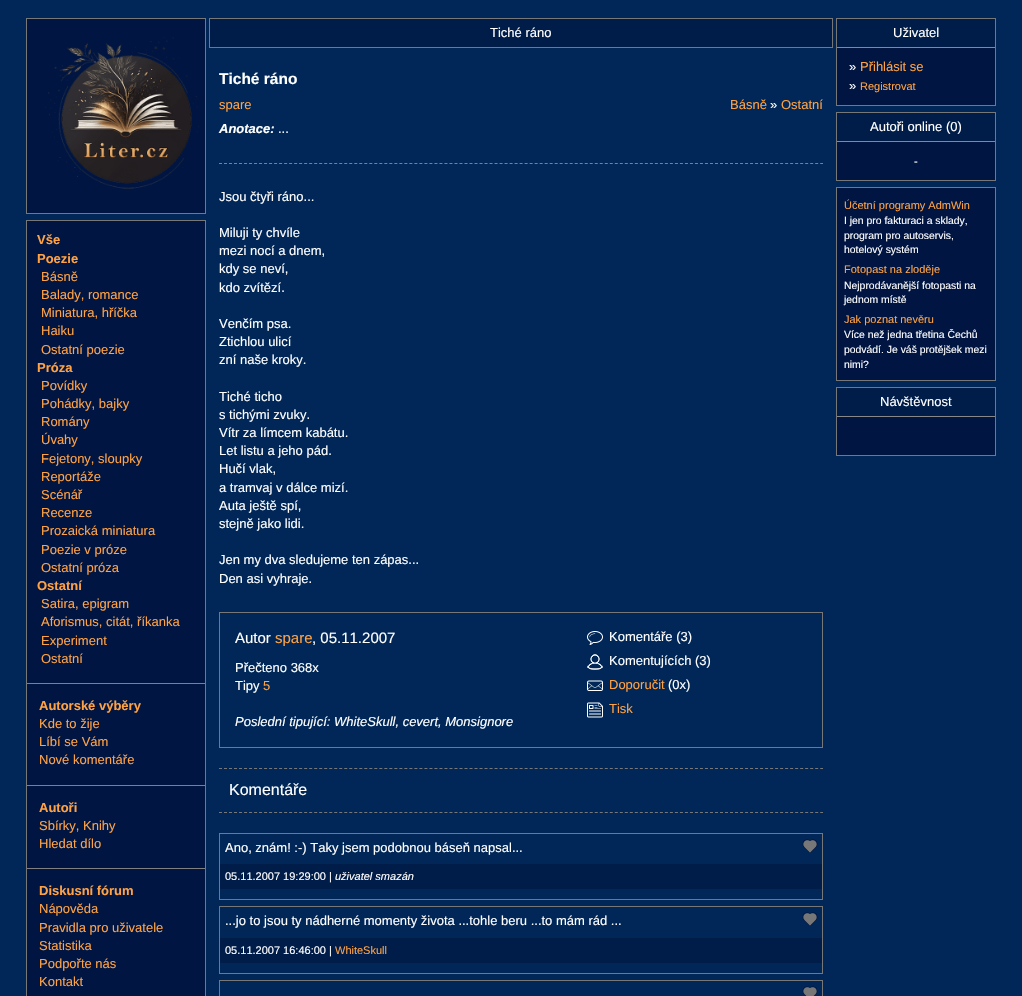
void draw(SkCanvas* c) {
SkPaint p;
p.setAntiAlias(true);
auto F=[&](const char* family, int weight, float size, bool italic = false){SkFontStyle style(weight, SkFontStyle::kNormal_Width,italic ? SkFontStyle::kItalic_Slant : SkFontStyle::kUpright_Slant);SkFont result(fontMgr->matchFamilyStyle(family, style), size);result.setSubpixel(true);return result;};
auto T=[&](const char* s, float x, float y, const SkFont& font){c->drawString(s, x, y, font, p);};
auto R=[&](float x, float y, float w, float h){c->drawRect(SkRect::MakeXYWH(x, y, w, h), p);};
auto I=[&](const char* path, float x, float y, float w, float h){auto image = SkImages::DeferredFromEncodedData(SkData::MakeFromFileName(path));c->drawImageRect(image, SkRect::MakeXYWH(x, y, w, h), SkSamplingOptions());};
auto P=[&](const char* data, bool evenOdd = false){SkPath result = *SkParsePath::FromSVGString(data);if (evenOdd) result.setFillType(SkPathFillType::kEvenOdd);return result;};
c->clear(0xff002757);
p.setColor(0xff001541);
c->drawRect(SkRect::MakeXYWH(26.5,18.5,179,195),p);
p.setStroke(true);
p.setStrokeWidth(1);
p.setColor(0xff777777);
c->drawRect(SkRect::MakeXYWH(26.5,18.5,179,195),p);
I("1.png",45,37,154,152);
p.setStroke(false);
p.setColor(0xff001541);
c->drawRect(SkRect::MakeXYWH(26.5,220.5,179,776),p);
p.setStroke(true);
p.setColor(0xff777777);
c->drawRect(SkRect::MakeXYWH(26.5,220.5,179,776),p);
auto f1 = F("Liberation Sans",700,13);
p.setStroke(false);
p.setColor(0xffffa244);
T("Vše",37,244,f1);
T("Poezie",37,263,f1);
auto f2 = F("Liberation Sans",400,13);
T("Básně",41,281,f2);
T("Balady, romance",41,299,f2);
T("Miniatura, hříčka",41,317,f2);
T("Haiku",41,335,f2);
T("Ostatní poezie",41,354,f2);
T("Próza",37,372,f1);
T("Povídky",41,390,f2);
T("Pohádky, bajky",41,408,f2);
T("Romány",41,426,f2);
T("Úvahy",41,444,f2);
T("Fejetony, sloupky",41,463,f2);
T("Reportáže",41,481,f2);
T("Scénář",41,499,f2);
T("Recenze",41,517,f2);
T("Prozaická miniatura",41,535,f2);
T("Poezie v próze",41,554,f2);
T("Ostatní próza",41,572,f2);
T("Ostatní",37,590,f1);
T("Satira, epigram",41,608,f2);
T("Aforismus, citát, říkanka",41,626,f2);
T("Experiment",41,645,f2);
T("Ostatní",41,663,f2);
p.setColor(0xff808080);
R(27,683,178,1);
p.setColor(0xffffa244);
T("Autorské výběry",39,710,f1);
T("Kde to žije",39,728,f2);
T("Líbí se Vám",39,746,f2);
T("Nové komentáře",39,764,f2);
p.setColor(0xff808080);
R(27,785,178,1);
p.setColor(0xffffa244);
T("Autoři",39,812,f1);
T("Sbírky, Knihy",39,830,f2);
T("Hledat dílo",39,848,f2);
p.setColor(0xff808080);
R(27,868,178,1);
p.setColor(0xffffa244);
T("Diskusní fórum",39,895,f1);
T("Nápověda",39,913,f2);
T("Pravidla pro uživatele",39,932,f2);
T("Statistika",39,950,f2);
T("Podpořte nás",39,968,f2);
T("Kontakt",39,986,f2);
p.setColor(0xff001d49);
c->drawRect(SkRect::MakeXYWH(209.5,18.5,623,29),p);
p.setStroke(true);
p.setColor(0xff777777);
c->drawRect(SkRect::MakeXYWH(209.5,18.5,623,29),p);
p.setStroke(false);
p.setColor(0xffffffff);
T("Tiché ráno",490,37,f2);
auto f3 = F("Liberation Sans",700,15.5);
T("Tiché ráno",219,84,f3);
p.setColor(0xffffa244);
T("spare",219,109,f2);
T("Básně",730,109,f2);
p.setColor(0xffffffff);
T("»",770,109,f2);
p.setColor(0xffffa244);
T("Ostatní",781,109,f2);
p.setStroke(true);
p.setColor(0xff808080);
p.setPathEffect(SkDashPathEffect::Make({{3,2.01f}}, 0));
c->drawPath(P("M219 163.5h604"),p);
p.setPathEffect(nullptr);
auto f4 = F("Liberation Sans",700,13,true);
p.setStroke(false);
p.setColor(0xffffffff);
T("Anotace:",219,133,f4);
T("...",278,133,f2);
T("Jsou čtyři ráno...",219,201,f2);
T("Miluji ty chvíle",219,237,f2);
T("mezi nocí a dnem,",219,255,f2);
T("kdy se neví,",219,273,f2);
T("kdo zvítězí.",219,292,f2);
T("Venčím psa.",219,328,f2);
T("Ztichlou ulicí",219,346,f2);
T("zní naše kroky.",219,364,f2);
T("Tiché ticho",219,401,f2);
T("s tichými zvuky.",219,419,f2);
T("Vítr za límcem kabátu.",219,437,f2);
T("Let listu a jeho pád.",219,455,f2);
T("Hučí vlak,",219,473,f2);
T("a tramvaj v dálce mizí.",219,492,f2);
T("Auta ještě spí,",219,510,f2);
T("stejně jako lidi.",219,528,f2);
T("Jen my dva sledujeme ten zápas...",219,564,f2);
T("Den asi vyhraje.",219,583,f2);
p.setStroke(true);
p.setColor(0xff777777);
c->drawRect(SkRect::MakeXYWH(219.5,612.5,603,135),p);
auto f5 = F("Liberation Sans",400,15);
p.setStroke(false);
p.setColor(0xffffffff);
T("Autor",235,643,f5);
p.setColor(0xffffa244);
T("spare",275,643,f5);
p.setColor(0xffffffff);
T(", 05.11.2007",312,643,f5);
T("Přečteno 368x",235,672,f2);
T("Tipy",235,690,f2);
p.setColor(0xffffa244);
T("5",263,690,f2);
auto f6 = F("Liberation Sans",400,13,true);
p.setColor(0xffffffff);
T("Poslední tipující: WhiteSkull, cevert, Monsignore",235,726,f6);
I("2.png",587,631,16,14);
T("Komentáře (3)",609,641,f2);
I("3.png",587,654,16,16);
T("Komentujících (3)",609,665,f2);
I("4.png",587,680,16,11);
p.setColor(0xffffa244);
T("Doporučit",609,689,f2);
p.setColor(0xffffffff);
T("(0x)",668,689,f2);
I("5.png",587,702,16,16);
p.setColor(0xffffa244);
T("Tisk",609,713,f2);
p.setStroke(true);
p.setColor(0xff777777);
p.setPathEffect(SkDashPathEffect::Make({{3,2.01f}}, 0));
c->drawPath(P("M219 768.5h604"),p);
p.setPathEffect(nullptr);
p.setPathEffect(SkDashPathEffect::Make({{3,2.01f}}, 0));
c->drawPath(P("M219 812.5h604"),p);
p.setPathEffect(nullptr);
auto f7 = F("Liberation Sans",400,16);
p.setStroke(false);
p.setColor(0xffffffff);
T("Komentáře",229,795,f7);
p.setStroke(true);
p.setColor(0xff777777);
c->drawRect(SkRect::MakeXYWH(219.5,833.5,603,66),p);
p.setStroke(false);
p.setColor(0xffffffff);
T("Ano, znám! :-) Taky jsem podobnou báseň napsal...",225,852,f2);
I("6.png",802,839,16,14);
p.setColor(0xff001d49);
R(220,864,602,25);
auto f8 = F("Liberation Sans",400,11);
p.setColor(0xffffffff);
T("05.11.2007 19:29:00 |",225,880,f8);
auto f9 = F("Liberation Sans",400,11,true);
T("uživatel smazán",335,880,f9);
p.setStroke(true);
p.setColor(0xff777777);
c->drawRect(SkRect::MakeXYWH(219.5,906.5,603,67),p);
p.setStroke(false);
p.setColor(0xffffffff);
T("...jo to jsou ty nádherné momenty života ...tohle beru ...to mám rád ...",225,925,f2);
I("6.png",802,912,16,14);
p.setColor(0xff001d49);
R(220,938,602,25);
p.setColor(0xffffffff);
T("05.11.2007 16:46:00 |",225,954,f8);
p.setColor(0xffffa244);
T("WhiteSkull",335,954,f8);
p.setStroke(true);
p.setColor(0xff777777);
c->drawRect(SkRect::MakeXYWH(219.5,980.5,603,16),p);
I("7.png",802,986,16,10);
p.setStroke(false);
p.setColor(0xff001541);
R(837,48,158,57);
p.setStroke(true);
p.setColor(0xff777777);
c->drawRect(SkRect::MakeXYWH(836.5,18.5,159,87),p);
p.setStroke(false);
p.setColor(0xff001d49);
R(837,19,158,28);
p.setColor(0xff888888);
R(837,47,158,1);
p.setColor(0xffffffff);
T("Uživatel",893,37,f2);
T("»",849,71,f2);
p.setColor(0xffffa244);
T("Přihlásit se",860,71,f2);
p.setColor(0xffffffff);
T("»",849,90,f2);
p.setColor(0xffffa244);
T("Registrovat",860,90,f8);
p.setColor(0xff001541);
R(837,142,158,38);
p.setStroke(true);
p.setColor(0xff777777);
c->drawRect(SkRect::MakeXYWH(836.5,112.5,159,68),p);
p.setStroke(false);
p.setColor(0xff001d49);
R(837,113,158,28);
p.setColor(0xff888888);
R(837,141,158,1);
p.setColor(0xffffffff);
T("Autoři online (0)",870,131,f2);
T("-",914,165,f8);
p.setColor(0xff001541);
c->drawRect(SkRect::MakeXYWH(836.5,187.5,159,193),p);
p.setStroke(true);
p.setColor(0xff777777);
c->drawRect(SkRect::MakeXYWH(836.5,187.5,159,193),p);
p.setStroke(false);
p.setColor(0xffffa244);
T("Účetní programy AdmWin",844,209,f8);
auto f10 = F("Liberation Sans",400,10.4);
p.setColor(0xffffffff);
T("I jen pro fakturaci a sklady,",844,224,f10);
T("program pro autoservis,",844,239,f10);
T("hotelový systém",844,253,f10);
p.setColor(0xffffa244);
T("Fotopast na zloděje",844,273,f8);
p.setColor(0xffffffff);
T("Nejprodávanější fotopasti na",844,289,f10);
T("jednom místě",844,303,f10);
p.setColor(0xffffa244);
T("Jak poznat nevěru",844,323,f8);
p.setColor(0xffffffff);
T("Více než jedna třetina Čechů",844,338,f10);
T("podvádí. Je váš protějšek mezi",844,353,f10);
T("nimi?",844,368,f10);
p.setColor(0xff001541);
R(837,417,158,38);
p.setStroke(true);
p.setColor(0xff777777);
c->drawRect(SkRect::MakeXYWH(836.5,387.5,159,68),p);
p.setStroke(false);
p.setColor(0xff001d49);
R(837,388,158,28);
p.setColor(0xff888888);
R(837,416,158,1);
p.setColor(0xffffffff);
T("Návštěvnost",880,406,f2);
}
